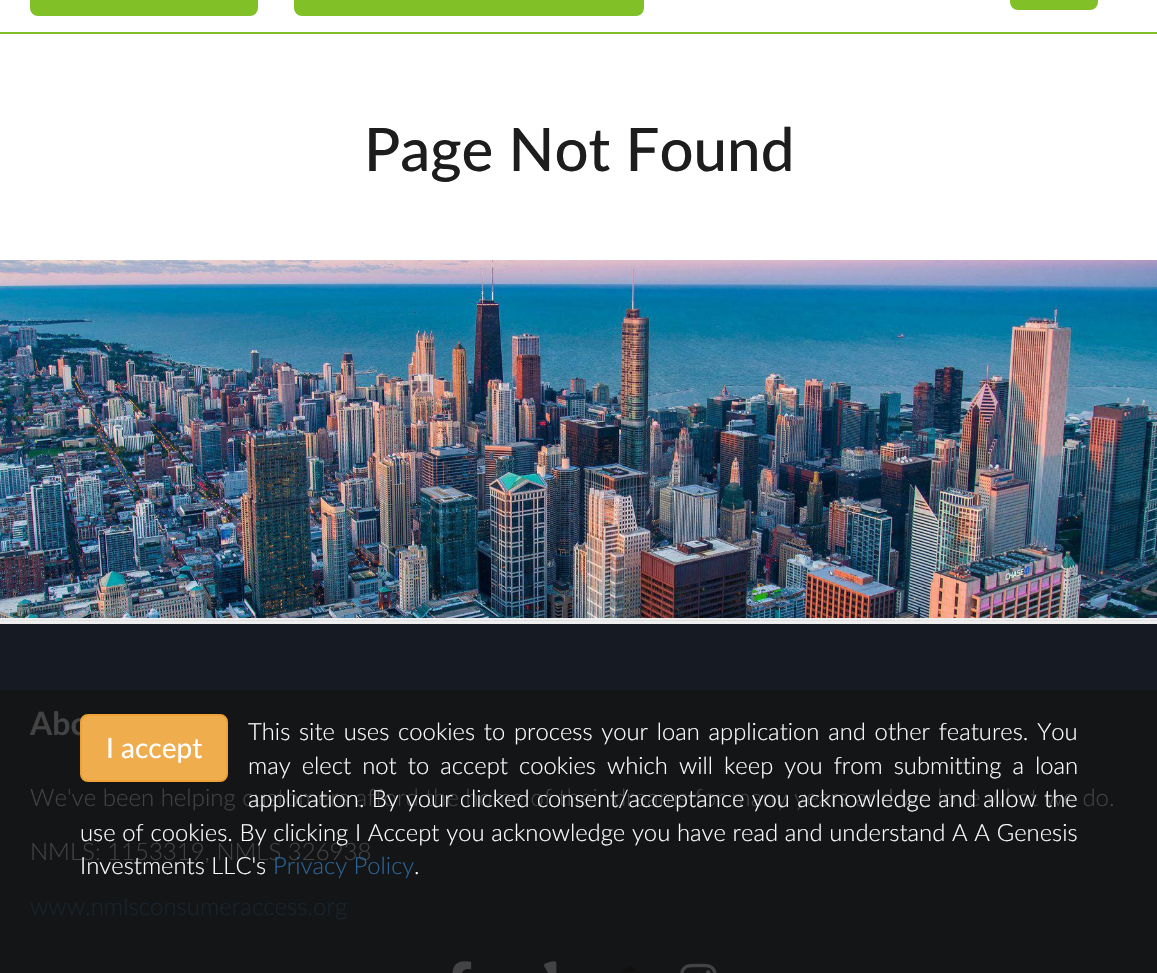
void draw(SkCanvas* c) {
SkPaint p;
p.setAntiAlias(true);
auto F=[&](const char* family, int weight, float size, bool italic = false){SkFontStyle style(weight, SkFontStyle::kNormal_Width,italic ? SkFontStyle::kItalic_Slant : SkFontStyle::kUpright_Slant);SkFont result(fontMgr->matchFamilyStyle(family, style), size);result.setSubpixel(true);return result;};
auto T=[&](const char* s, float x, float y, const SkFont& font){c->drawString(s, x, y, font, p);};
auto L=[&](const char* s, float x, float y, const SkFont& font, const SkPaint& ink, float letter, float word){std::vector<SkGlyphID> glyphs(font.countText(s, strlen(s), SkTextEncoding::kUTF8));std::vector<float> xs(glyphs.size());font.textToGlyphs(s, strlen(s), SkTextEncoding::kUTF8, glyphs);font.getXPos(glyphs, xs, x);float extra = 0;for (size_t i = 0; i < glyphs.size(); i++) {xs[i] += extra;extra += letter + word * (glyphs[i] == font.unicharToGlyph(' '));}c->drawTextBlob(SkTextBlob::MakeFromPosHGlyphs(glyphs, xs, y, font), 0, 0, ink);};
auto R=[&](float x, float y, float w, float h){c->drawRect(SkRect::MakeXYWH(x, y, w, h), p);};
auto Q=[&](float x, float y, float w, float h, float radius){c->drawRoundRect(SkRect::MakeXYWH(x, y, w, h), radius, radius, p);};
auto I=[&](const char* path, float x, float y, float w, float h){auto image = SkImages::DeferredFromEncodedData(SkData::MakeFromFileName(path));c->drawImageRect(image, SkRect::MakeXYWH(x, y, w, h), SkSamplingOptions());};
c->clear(0xffffffff);
p.setColor(0xff81c127);
R(0,32,1157,2);
Q(30,-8,228,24,8);
Q(294,-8,350,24,8);
c->drawRoundRect(SkRect::MakeXYWH(1011,-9,86,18),7,7,p);
p.setStroke(true);
p.setStrokeWidth(2);
c->drawRoundRect(SkRect::MakeXYWH(1011,-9,86,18),7,7,p);
auto f1 = F("Lato",500,60);
p.setStroke(false);
p.setColor(0xff1d1d1d);
T("Page Not Found",364,171,f1);
p.setColor(0xffeeeeee);
R(0,620,1157,4);
I("1.png",0,260,1157,361);
p.setColor(0xffededed);
R(0,618,1157,2);
p.setColor(0xff161a22);
R(0,624,1157,66);
p.setColor(0xff141517);
R(0,690,1157,283);
auto f2 = F("Lato",700,32);
p.setColor(0xff434343);
T("Abo",30,735,f2);
auto f3 = F("Lato",300,24);
T("We've been helping customers afford the home of their dreams for many years and we love what we do.",30,806,f3);
T("NMLS: 1153319, NMLS 326938",30,860,f3);
p.setColor(0xff18242e);
T("www.nmlsconsumeraccess.org",30,915,f3);
I("2.png",452,961,20,12);
I("3.png",544,961,13,12);
I("4.png",620,966,20,7);
I("5.png",680,963,37,10);
auto f4 = F("Lato",300,23.8);
p.setColor(0xffffffff);
L("This site uses cookies to process your loan application and other features. You",248,740,f4,p,0,2.25);
p.setColor(0xfff0ad4e);
c->drawRoundRect(SkRect::MakeXYWH(81,715,146,66),7,7,p);
p.setStroke(true);
p.setColor(0xffeea236);
c->drawRoundRect(SkRect::MakeXYWH(81,715,146,66),7,7,p);
auto f5 = F("Lato",400,28);
p.setStroke(false);
p.setColor(0xffffffff);
T("I accept",106,758,f5);
L("may elect not to accept cookies which will keep you from submitting a loan",248,774,f4,p,0,4.6);
L("application. By your clicked consent/acceptance you acknowledge and allow the",248,807,f4,p,0,.75);
L("use of cookies. By clicking I Accept you acknowledge you have read and understand A A Genesis",80,841,f4,p,0,.25);
T("Investments LLC's",80,874,f4);
p.setColor(0xff2a6496);
T("Privacy Policy",273,874,f4);
p.setColor(0xffffffff);
T(".",414,874,f4);
}
